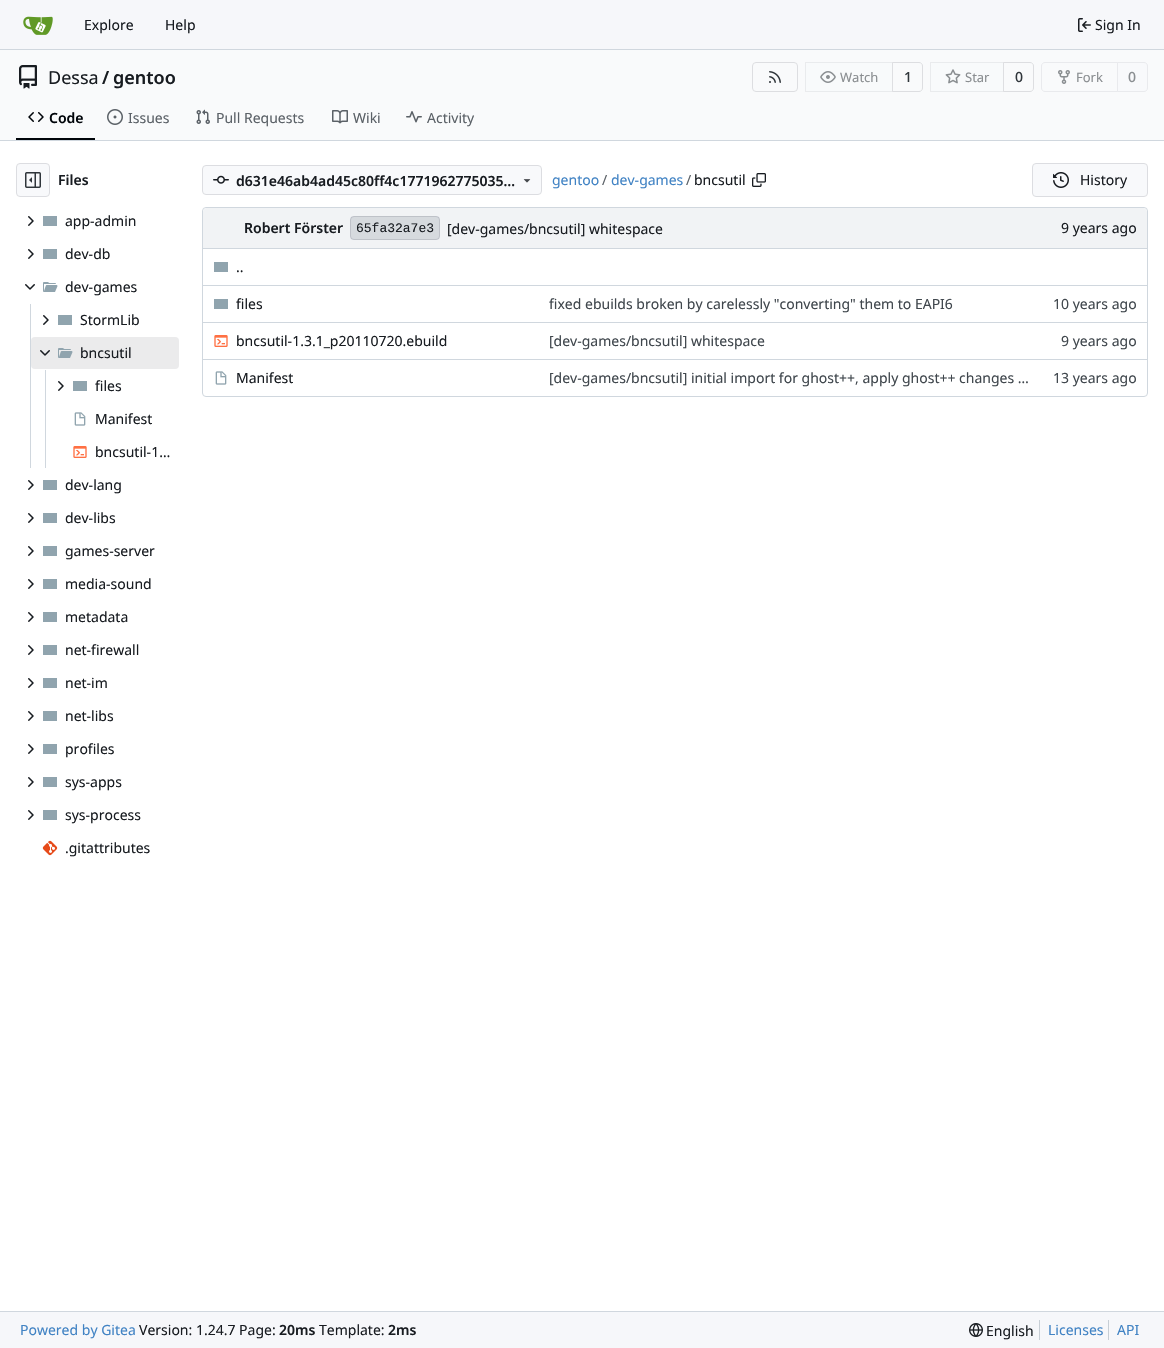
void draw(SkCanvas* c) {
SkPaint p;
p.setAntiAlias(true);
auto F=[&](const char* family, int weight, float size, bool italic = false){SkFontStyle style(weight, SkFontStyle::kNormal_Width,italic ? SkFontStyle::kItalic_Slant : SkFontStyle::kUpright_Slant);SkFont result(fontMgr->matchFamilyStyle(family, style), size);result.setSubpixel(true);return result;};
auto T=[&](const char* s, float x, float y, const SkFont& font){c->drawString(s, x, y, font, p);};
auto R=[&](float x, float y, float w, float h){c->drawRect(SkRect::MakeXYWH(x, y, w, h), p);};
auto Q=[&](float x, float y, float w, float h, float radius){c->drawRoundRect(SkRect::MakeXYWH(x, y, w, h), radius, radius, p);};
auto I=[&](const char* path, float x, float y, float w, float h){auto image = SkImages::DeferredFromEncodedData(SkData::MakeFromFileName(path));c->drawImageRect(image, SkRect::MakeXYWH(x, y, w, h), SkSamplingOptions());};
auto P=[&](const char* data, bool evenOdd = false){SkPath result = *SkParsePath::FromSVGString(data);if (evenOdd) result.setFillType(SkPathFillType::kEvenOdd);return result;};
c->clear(0xffffffff);
p.setColor(0xfff6f7fa);
R(0,0,1164,49);
p.setColor(0xffd0d7de);
R(0,49,1164,1);
I("1.png",23,16,30,19);
auto f1 = F("Noto Sans",400,14);
p.setColor(0xff181c21);
T("Explore",84,30,f1);
T("Help",165,30,f1);
I("2.png",1078,18,13,14);
T("Sign In",1095,30,f1);
p.setColor(0xfff9fafb);
R(0,50,1164,90);
I("3.png",19,65,18,24);
auto f2 = F("Noto Sans",400,18);
p.setColor(0xff181c21);
T("Dessa",48,84,f2);
auto f3 = F("Noto Sans",600,18);
T("/",102,84,f3);
T("gentoo",113,84,f3);
p.setStroke(true);
p.setStrokeWidth(1);
p.setColor(0xffdddee1);
c->drawRoundRect(SkRect::MakeXYWH(752.5,62.5,45,29),3.5,3.5,p);
I("4.png",769,71,12,12);
c->drawPath(P("M892.5 62.5h26.5c2 0 3.5 1.5 3.5 3.5v22c0 2-1.5 3.5-3.5 3.5h-26.5z"),p);
p.setStroke(false);
p.setColor(0x8cf8f9fb);
c->drawPath(P("M809 62h84v30h-84c-2 0-4-2-4-4v-22c0-2 2-4 4-4z"),p);
p.setStroke(true);
p.setColor(0x0f000017);
c->drawRect(SkRect::MakeXYWH(805.5,62.5,87,29),p);
I("5.png",820,71,16,12);
auto f4 = F("Noto Sans",400,13);
p.setStroke(false);
p.setColor(0xff8a8e91);
T("Watch",840,82,f4);
auto f5 = F("Noto Sans",500,14);
p.setColor(0xff30363b);
T("1",904,82,f5);
p.setStroke(true);
p.setColor(0xffdddee1);
c->drawPath(P("M1003.5 62.5h26.5c2 0 3.5 1.5 3.5 3.5v22c0 2-1.5 3.5-3.5 3.5h-26.5z"),p);
p.setStroke(false);
p.setColor(0x8cf8f9fb);
c->drawPath(P("M934 62h70v30h-70c-2 0-4-2-4-4v-22c0-2 2-4 4-4z"),p);
p.setStroke(true);
p.setColor(0x0f000017);
c->drawRect(SkRect::MakeXYWH(930.5,62.5,73,29),p);
I("6.png",945,69,16,15);
p.setStroke(false);
p.setColor(0xff8a8e91);
T("Star",965,82,f4);
p.setColor(0xff30363b);
T("0",1015,82,f5);
p.setStroke(true);
p.setColor(0xffe9eaed);
c->drawPath(P("M1045 62.5h72.5v29h-72.5c-2 0-3.5-1.5-3.5-3.5v-22c0-2 1.5-3.5 3.5-3.5z"),p);
I("7.png",1058,70,12,14);
p.setStroke(false);
p.setColor(0xff8a8e91);
T("Fork",1076,82,f4);
p.setColor(0xfff8f9fb);
c->drawPath(P("M1117.5 62.5h26.5c2 0 3.5 1.5 3.5 3.5v22c0 2-1.5 3.5-3.5 3.5h-26.5z"),p);
p.setStroke(true);
p.setColor(0xffe9eaed);
c->drawPath(P("M1117.5 62.5h26.5c2 0 3.5 1.5 3.5 3.5v22c0 2-1.5 3.5-3.5 3.5h-26.5z"),p);
p.setStroke(false);
p.setColor(0xff8a8e91);
T("0",1128,82,f5);
p.setColor(0xff01050a);
R(16,138,79,2);
I("8.png",28,112,16,10);
auto f6 = F("Noto Sans",600,14);
T("Code",49,123,f6);
I("9.png",107,109,16,16);
p.setColor(0xff5b6167);
T("Issues",128,123,f1);
I("10.png",196,109,14,15);
T("Pull Requests",216,123,f1);
I("11.png",332,110,16,14);
T("Wiki",353,123,f1);
I("12.png",406,111,16,12);
T("Activity",427,123,f1);
p.setColor(0xffd0d7de);
R(0,140,1164,1);
p.setColor(0xfff8f9fb);
c->drawRoundRect(SkRect::MakeXYWH(16.5,163.5,33,33),3.5,3.5,p);
p.setStroke(true);
p.setColor(0xffdcdde1);
c->drawRoundRect(SkRect::MakeXYWH(16.5,163.5,33,33),3.5,3.5,p);
I("13.png",25,172,16,16);
p.setStroke(false);
p.setColor(0xff181c21);
T("Files",58,185,f6);
I("14.png",28,216,6,10);
p.setColor(0xff90a4ae);
R(43,216,14,10);
p.setColor(0xff181c21);
T("app-admin",65,226,f1);
I("14.png",28,249,6,10);
p.setColor(0xff90a4ae);
R(43,249,14,10);
p.setColor(0xff181c21);
T("dev-db",65,259,f1);
I("15.png",25,284,10,6);
I("16.png",43,282,15,10);
T("dev-games",65,292,f1);
p.setColor(0xffd0d7de);
R(30,304,1,164);
I("14.png",43,315,6,10);
p.setColor(0xff90a4ae);
R(58,315,14,10);
p.setColor(0xff181c21);
T("StormLib",80,325,f1);
p.setColor(0xffebebec);
Q(31,337,148,32,4);
I("17.png",40,350,10,6);
I("18.png",58,348,15,10);
p.setColor(0xff181c21);
T("bncsutil",80,358,f1);
p.setColor(0xffd0d7de);
R(45,370,1,98);
I("14.png",58,381,6,10);
p.setColor(0xff90a4ae);
R(73,381,14,10);
p.setColor(0xff181c21);
T("files",95,391,f1);
I("19.png",74,412,12,14);
T("Manifest",95,424,f1);
I("20.png",73,446,14,12);
T("bncsutil-1…",95,457,f1);
I("14.png",28,480,6,10);
p.setColor(0xff90a4ae);
R(43,480,14,10);
p.setColor(0xff181c21);
T("dev-lang",65,490,f1);
I("14.png",28,513,6,10);
p.setColor(0xff90a4ae);
R(43,513,14,10);
p.setColor(0xff181c21);
T("dev-libs",65,523,f1);
I("14.png",28,546,6,10);
p.setColor(0xff90a4ae);
R(43,546,14,10);
p.setColor(0xff181c21);
T("games-server",65,556,f1);
I("14.png",28,579,6,10);
p.setColor(0xff90a4ae);
R(43,579,14,10);
p.setColor(0xff181c21);
T("media-sound",65,589,f1);
I("14.png",28,612,6,10);
p.setColor(0xff90a4ae);
R(43,612,14,10);
p.setColor(0xff181c21);
T("metadata",65,622,f1);
I("14.png",28,645,6,10);
p.setColor(0xff90a4ae);
R(43,645,14,10);
p.setColor(0xff181c21);
T("net-firewall",65,655,f1);
I("14.png",28,678,6,10);
p.setColor(0xff90a4ae);
R(43,678,14,10);
p.setColor(0xff181c21);
T("net-im",65,688,f1);
I("14.png",28,711,6,10);
p.setColor(0xff90a4ae);
R(43,711,14,10);
p.setColor(0xff181c21);
T("net-libs",65,721,f1);
I("14.png",28,744,6,10);
p.setColor(0xff90a4ae);
R(43,744,14,10);
p.setColor(0xff181c21);
T("profiles",65,754,f1);
I("14.png",28,777,6,10);
p.setColor(0xff90a4ae);
R(43,777,14,10);
p.setColor(0xff181c21);
T("sys-apps",65,787,f1);
I("14.png",28,810,6,10);
p.setColor(0xff90a4ae);
R(43,810,14,10);
p.setColor(0xff181c21);
T("sys-process",65,820,f1);
I("21.png",42,840,16,16);
T(".gitattributes",65,853,f1);
p.setColor(0xfff8f9fb);
c->drawRoundRect(SkRect::MakeXYWH(202.5,165.5,339,29),3.5,3.5,p);
p.setStroke(true);
p.setColor(0xffdcdde1);
c->drawRoundRect(SkRect::MakeXYWH(202.5,165.5,339,29),3.5,3.5,p);
I("22.png",213,175,16,9);
p.setStroke(false);
p.setColor(0xff181c21);
T("d631e46ab4ad45c80ff4c1771962775035…",236,186,f6);
I("23.png",523,179,8,4);
p.setColor(0xff4183c4);
T("gentoo",552,185,f1);
p.setColor(0xff5b6167);
T("/",602,185,f1);
p.setColor(0xff4183c4);
T("dev-games",611,185,f1);
p.setColor(0xff5b6167);
T("/",686,185,f1);
p.setColor(0xff181c21);
T("bncsutil",694,185,f1);
I("24.png",752,173,14,14);
p.setColor(0xfff8f9fb);
c->drawRoundRect(SkRect::MakeXYWH(1032.5,163.5,115,33),3.5,3.5,p);
p.setStroke(true);
p.setColor(0xffdcdde1);
c->drawRoundRect(SkRect::MakeXYWH(1032.5,163.5,115,33),3.5,3.5,p);
I("25.png",1053,172,16,16);
p.setStroke(false);
p.setColor(0xff181c21);
T("History",1080,185,f1);
p.setStroke(true);
p.setColor(0xffd0d7de);
c->drawRoundRect(SkRect::MakeXYWH(202.5,207.5,945,189),3.5,3.5,p);
p.setStroke(false);
p.setColor(0xfff1f3f5);
c->drawPath(P("M207 208h936c2 0 4 2 4 4v36h-944v-36c0-2 2-4 4-4z"),p);
p.setColor(0xff181c21);
T("Robert Förster",244,233,f6);
p.setColor(0xffd6dade);
Q(350,216,90,24,4);
p.setStroke(true);
p.setColor(0x1c000017);
c->drawRoundRect(SkRect::MakeXYWH(350.5,216.5,89,23),3.5,3.5,p);
auto f7 = F("Liberation Mono",400,13);
p.setStroke(false);
p.setColor(0xff181c21);
T("65fa32a7e3",356,232,f7);
T("[dev-games/bncsutil] whitespace",447,234,f1);
T("9 years ago",1061,233,f1);
p.setColor(0xffd0d7de);
R(203,248,944,1);
p.setColor(0xff90a4ae);
R(214,262,14,10);
p.setColor(0xff181c21);
T("..",236,272,f1);
p.setColor(0xffd0d7de);
R(203,285,840,1);
p.setColor(0xff90a4ae);
R(214,299,14,10);
p.setColor(0xff181c21);
T("files",236,309,f1);
p.setColor(0xff40474d);
T("fixed ebuilds broken by carelessly \"converting\" them to EAPI6",549,309,f1);
p.setColor(0xffd0d7de);
R(1043,285,104,1);
p.setColor(0xff40474d);
T("10 years ago",1053,309,f1);
p.setColor(0xffd0d7de);
R(203,322,840,1);
I("20.png",214,335,14,12);
p.setColor(0xff181c21);
T("bncsutil-1.3.1_p20110720.ebuild",236,346,f1);
p.setColor(0xff40474d);
T("[dev-games/bncsutil] whitespace",549,346,f1);
p.setColor(0xffd0d7de);
R(1043,322,104,1);
p.setColor(0xff40474d);
T("9 years ago",1061,346,f1);
p.setColor(0xffd0d7de);
R(203,359,840,1);
I("19.png",215,371,12,14);
p.setColor(0xff181c21);
T("Manifest",236,383,f1);
p.setColor(0xff40474d);
T("[dev-games/bncsutil] initial import for ghost++, apply ghost++ changes …",549,383,f1);
p.setColor(0xffd0d7de);
R(1043,359,104,1);
p.setColor(0xff40474d);
T("13 years ago",1053,383,f1);
p.setColor(0xfff6f7fa);
R(0,1312,1164,36);
p.setColor(0xffd0d7de);
R(0,1311,1164,1);
p.setColor(0xff4183c4);
T("Powered by Gitea",20,1335,f1);
p.setColor(0xff181c21);
T("Version: 1.24.7 Page:",139,1335,f1);
T("20ms",279,1335,f6);
T("Template:",319,1335,f1);
T("2ms",388,1335,f6);
I("26.png",969,1323,14,14);
T("English",986,1336,f1);
p.setColor(0xffc7ced5);
R(1039,1320,1,20);
p.setColor(0xff4183c4);
T("Licenses",1048,1335,f1);
p.setColor(0xffc7ced5);
R(1108,1320,1,20);
p.setColor(0xff4183c4);
T("API",1117,1335,f1);
}
